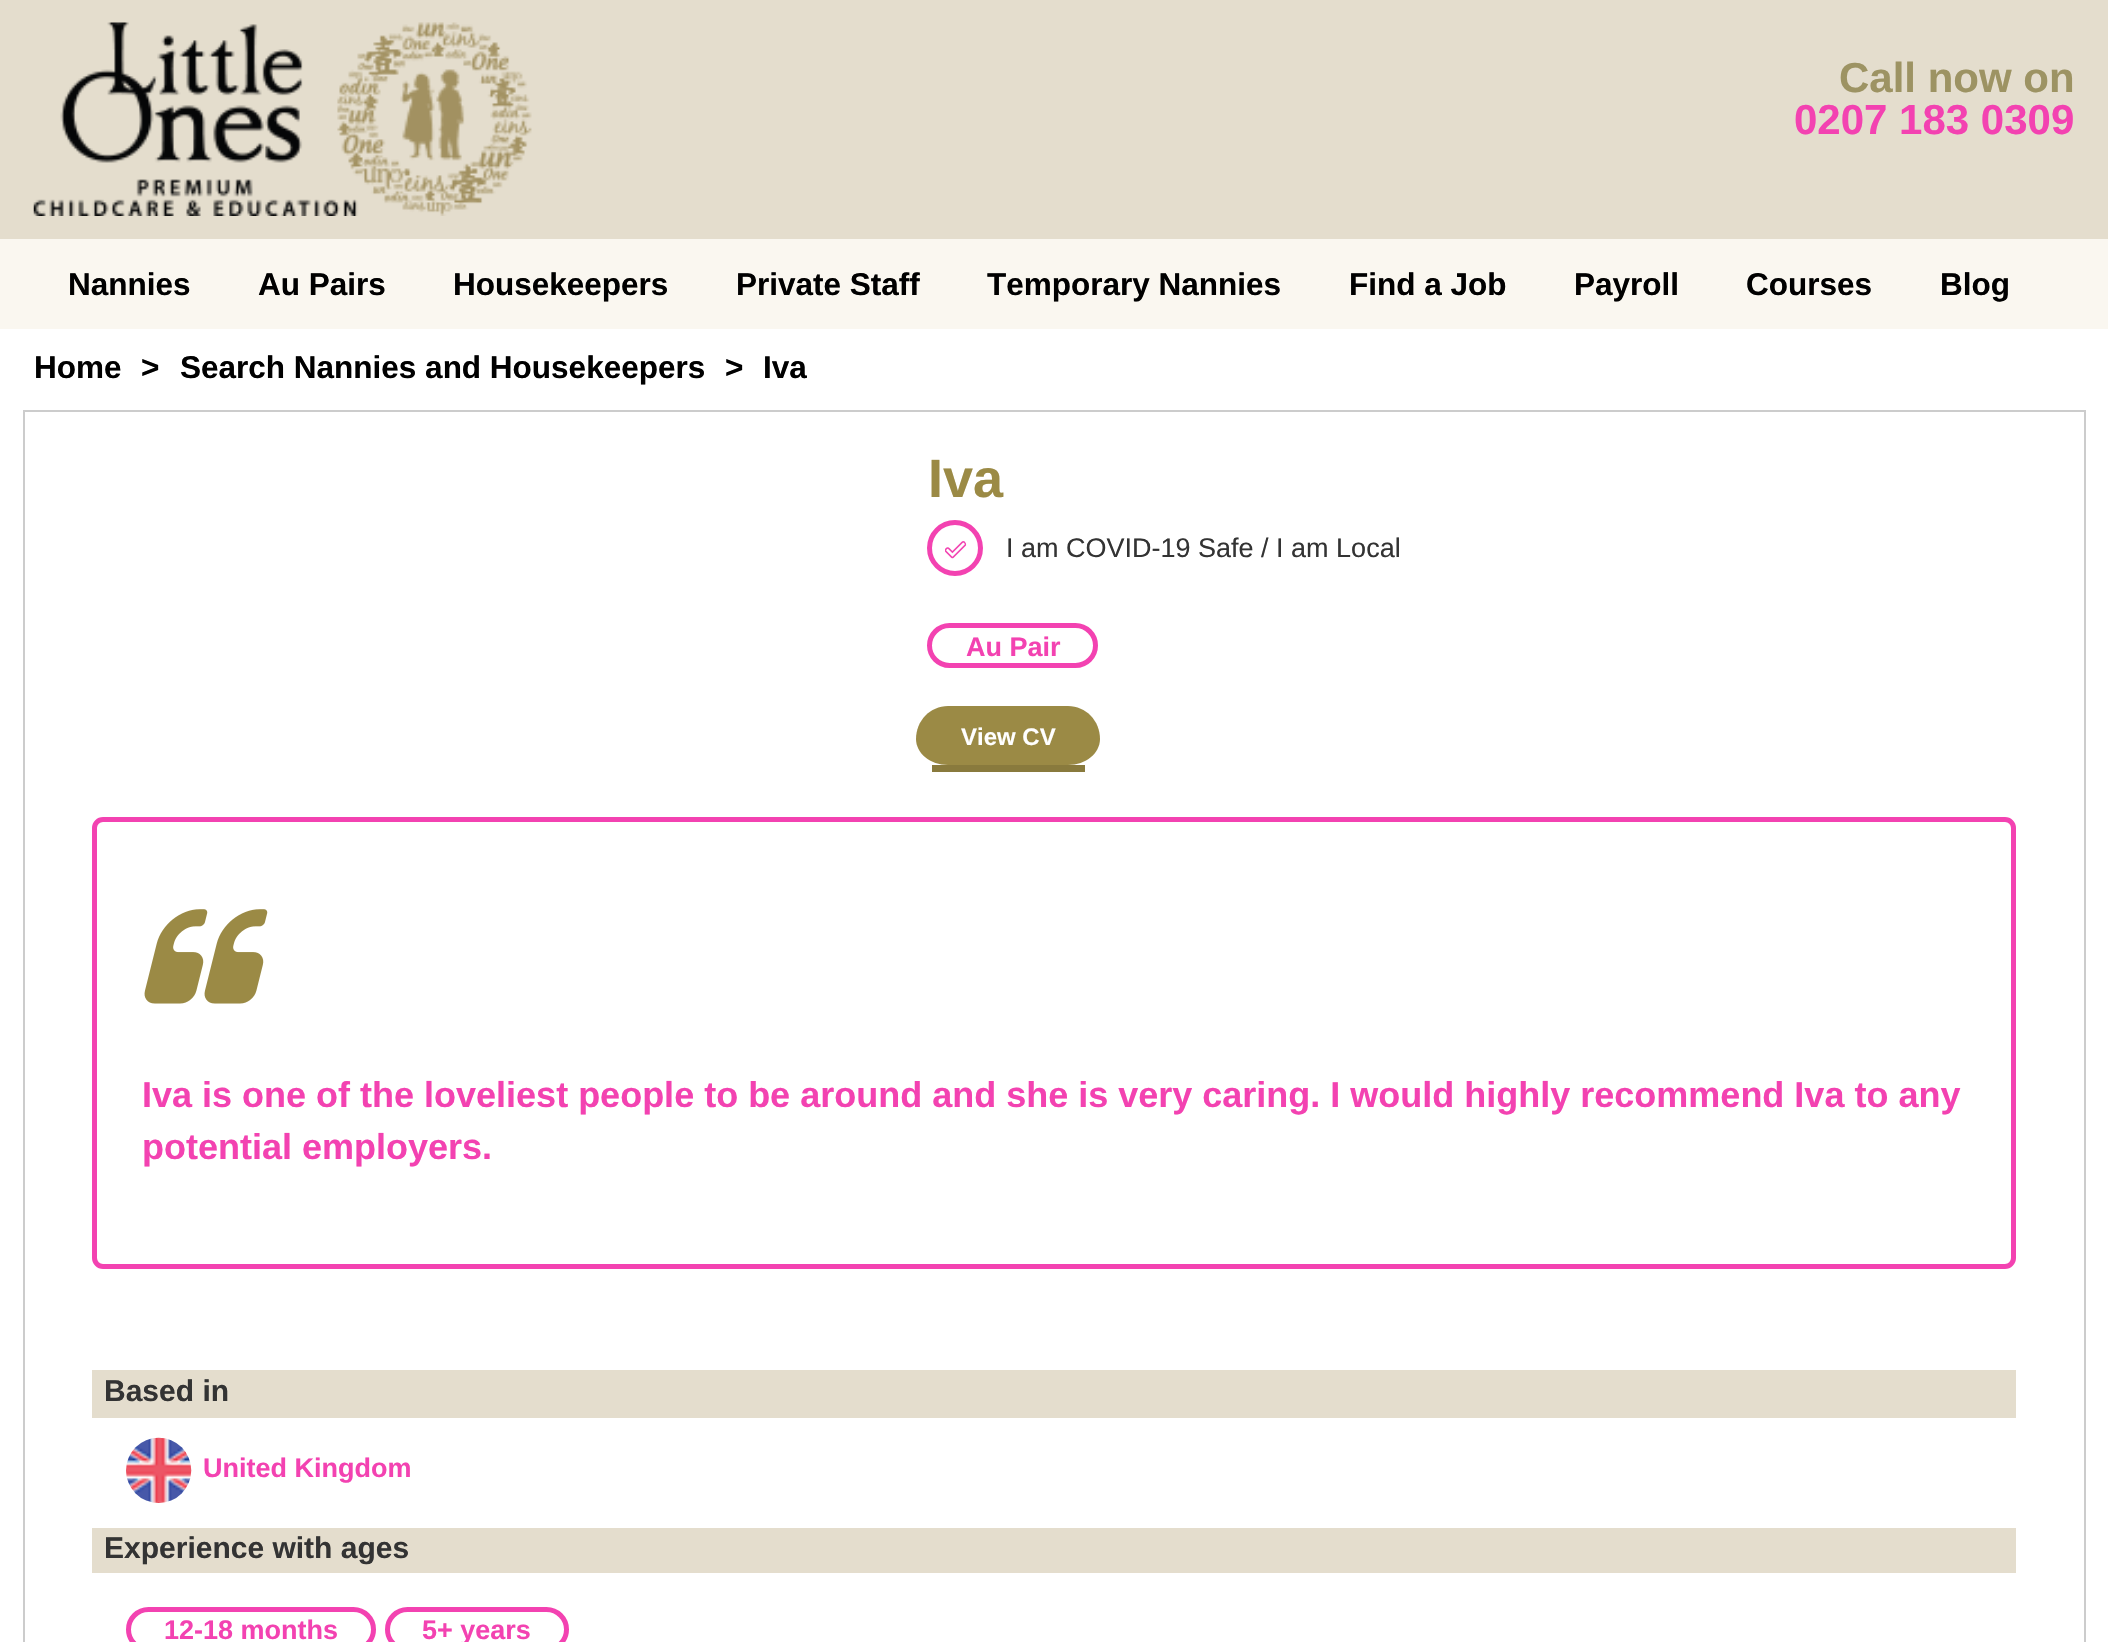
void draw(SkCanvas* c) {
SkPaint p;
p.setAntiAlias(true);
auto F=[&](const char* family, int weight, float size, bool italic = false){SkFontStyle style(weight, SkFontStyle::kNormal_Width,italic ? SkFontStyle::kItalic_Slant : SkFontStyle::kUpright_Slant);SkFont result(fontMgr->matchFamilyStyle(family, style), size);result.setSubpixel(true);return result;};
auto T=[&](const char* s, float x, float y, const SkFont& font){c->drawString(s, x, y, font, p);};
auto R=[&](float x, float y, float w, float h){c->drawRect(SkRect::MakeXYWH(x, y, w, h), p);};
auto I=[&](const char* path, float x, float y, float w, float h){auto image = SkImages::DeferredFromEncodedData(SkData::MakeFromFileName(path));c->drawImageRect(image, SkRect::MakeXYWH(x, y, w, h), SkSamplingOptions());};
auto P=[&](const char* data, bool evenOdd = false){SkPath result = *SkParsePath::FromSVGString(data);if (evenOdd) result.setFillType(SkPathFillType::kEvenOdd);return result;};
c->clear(0xffffffff);
p.setColor(0xffe4ddcd);
R(0,0,2108,239);
I("1.png",33,22,499,194);
auto f1 = F("Liberation Sans",700,42);
p.setColor(0xff9d9363);
T("Call now on",1839,92,f1);
p.setColor(0xfff342b1);
T("0207 183 0309",1794,134,f1);
p.setColor(0xfffaf7f0);
R(0,239,2108,90);
auto f2 = F("Liberation Sans",700,31.5);
p.setColor(0xff000000);
T("Nannies",68,295,f2);
T("Au Pairs",258,295,f2);
T("Housekeepers",453,295,f2);
T("Private Staff",736,295,f2);
T("Temporary Nannies",987,295,f2);
T("Find a Job",1349,295,f2);
T("Payroll",1574,295,f2);
T("Courses",1746,295,f2);
T("Blog",1940,295,f2);
T("Home",34,378,f2);
T(">",141,378,f2);
T("Search Nannies and Housekeepers",180,378,f2);
T(">",725,378,f2);
T("Iva",763,378,f2);
p.setColor(0xffcccccc);
R(23,410,2063,2);
R(2084,410,2,1232);
R(23,410,2,1232);
auto f3 = F("Liberation Sans",700,54);
p.setColor(0xff9b8a45);
T("Iva",928,497,f3);
p.setStroke(true);
p.setStrokeWidth(5);
p.setColor(0xfff342b1);
c->drawCircle(955,548,25.5,p);
I("2.png",945,541,22,18);
auto f4 = F("Liberation Sans",400,27);
p.setStroke(false);
p.setColor(0xff333333);
T("I am COVID-19 Safe / I am Local",1006,557,f4);
p.setStroke(true);
p.setColor(0xfff342b1);
c->drawRoundRect(SkRect::MakeXYWH(929.5,625.5,166,40),20,20,p);
auto f5 = F("Liberation Sans",700,27);
p.setStroke(false);
T("Au Pair",966,656,f5);
p.setColor(0xff9b8a45);
c->drawPath(P("M948 706h120c18 0 32 15 32 33c0 14-14 26-32 26h-120c-18 0-32-12-32-26c0-18 14-33 32-33z"),p);
p.setColor(0xff897a3d);
R(932,765,153,7);
auto f6 = F("Liberation Sans",700,24);
p.setColor(0xffffffff);
T("View CV",961,745,f6);
p.setStroke(true);
p.setColor(0xfff342b1);
c->drawRoundRect(SkRect::MakeXYWH(94.5,819.5,1919,447),8.5,8.5,p);
I("3.png",144,909,124,95);
auto f7 = F("Liberation Sans",700,36);
p.setStroke(false);
T("Iva is one of the loveliest people to be around and she is very caring. I would highly recommend Iva to any",142,1107,f7);
T("potential employers.",142,1159,f7);
p.setColor(0xffe4ddcd);
R(92,1370,1924,48);
auto f8 = F("Liberation Sans",700,30);
p.setColor(0xff333333);
T("Based in",104,1401,f8);
I("4.png",126,1437,66,66);
p.setColor(0xfff342b1);
T("United Kingdom",203,1477,f5);
p.setColor(0xffe4ddcd);
R(92,1528,1924,45);
p.setColor(0xff333333);
T("Experience with ages",104,1558,f8);
p.setStroke(true);
p.setColor(0xfff342b1);
c->drawRoundRect(SkRect::MakeXYWH(128.5,1609.5,245,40),20,20,p);
p.setStroke(false);
T("12-18 months",164,1639,f5);
p.setStroke(true);
c->drawRoundRect(SkRect::MakeXYWH(387.5,1609.5,179,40),20,20,p);
p.setStroke(false);
T("5+ years",422,1639,f5);
}
